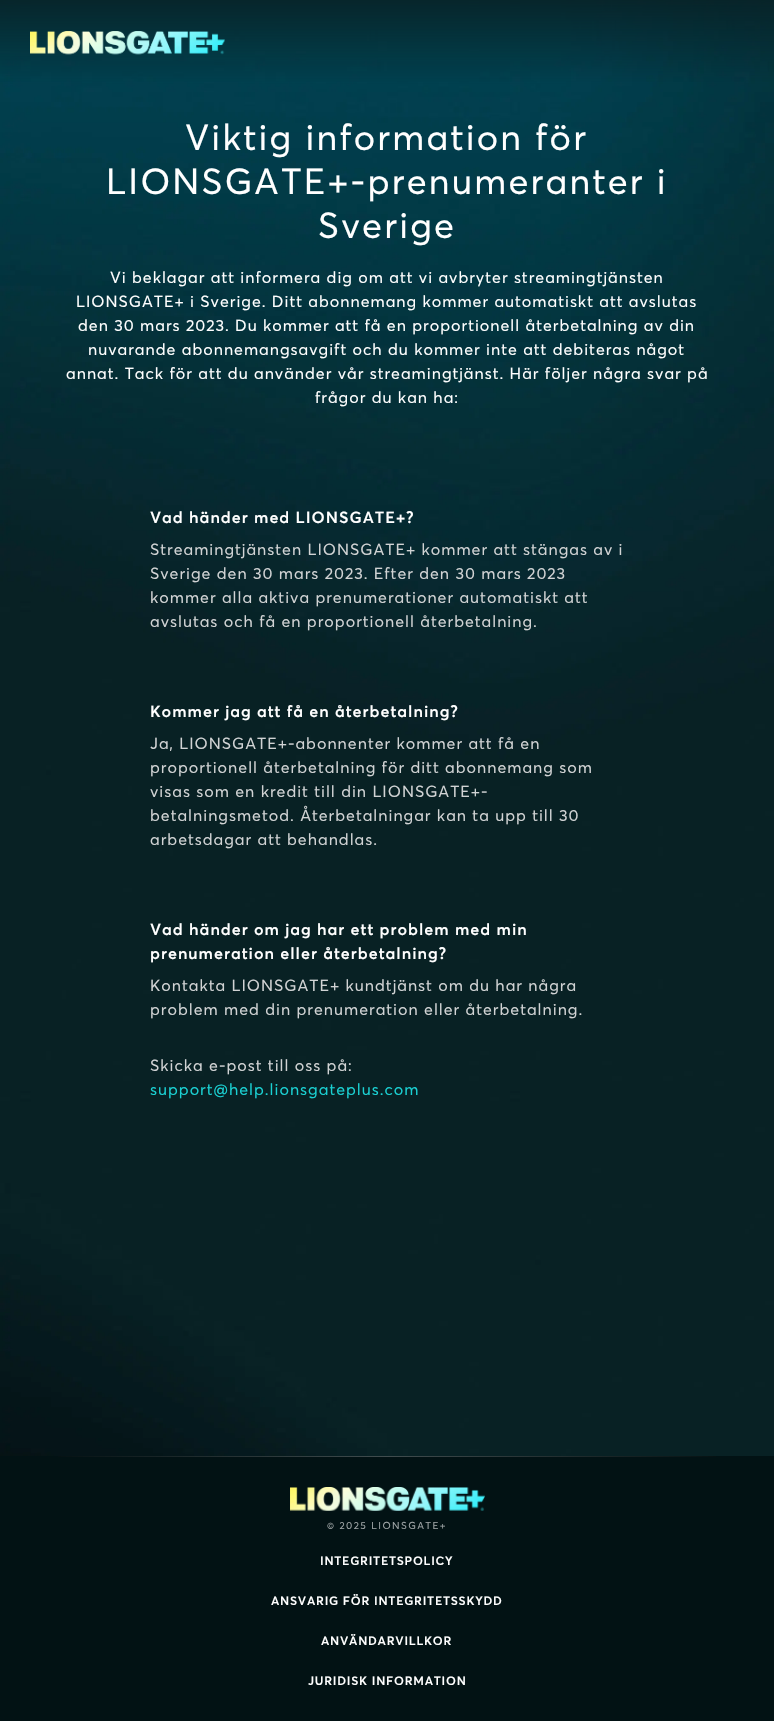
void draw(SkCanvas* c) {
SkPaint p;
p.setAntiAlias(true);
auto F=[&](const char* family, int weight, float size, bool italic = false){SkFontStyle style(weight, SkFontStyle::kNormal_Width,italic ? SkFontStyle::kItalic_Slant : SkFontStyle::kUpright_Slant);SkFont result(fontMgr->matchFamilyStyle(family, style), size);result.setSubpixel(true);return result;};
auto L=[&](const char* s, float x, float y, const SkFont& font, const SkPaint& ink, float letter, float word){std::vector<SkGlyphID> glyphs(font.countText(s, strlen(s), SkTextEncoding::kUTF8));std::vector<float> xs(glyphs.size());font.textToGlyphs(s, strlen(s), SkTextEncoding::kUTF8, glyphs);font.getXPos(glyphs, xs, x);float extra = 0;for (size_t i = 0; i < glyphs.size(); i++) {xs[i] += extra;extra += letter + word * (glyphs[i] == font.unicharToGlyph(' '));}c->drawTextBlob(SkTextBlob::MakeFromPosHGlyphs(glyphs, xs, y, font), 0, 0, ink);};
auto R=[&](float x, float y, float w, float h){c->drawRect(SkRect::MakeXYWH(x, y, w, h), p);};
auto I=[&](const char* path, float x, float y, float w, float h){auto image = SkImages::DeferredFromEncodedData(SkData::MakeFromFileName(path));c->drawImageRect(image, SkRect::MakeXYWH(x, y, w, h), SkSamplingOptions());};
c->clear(0xffffffff);
I("1.png",0,0,774,1456);
I("2.png",30,31,195,24);
auto f1 = F("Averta",400,36);
p.setColor(0xffffffff);
L("Viktig information för",185,150,f1,p,2.25,0);
L("LIONSGATE+-prenumeranter i",106,194,f1,p,2.25,0);
L("Sverige",318,238,f1,p,2.25,0);
auto f2 = F("Averta",400,16);
L("Vi beklagar att informera dig om att vi avbryter streamingtjänsten",110,283,f2,p,1,0);
L("LIONSGATE+ i Sverige. Ditt abonnemang kommer automatiskt att avslutas",76,307,f2,p,1,0);
L("den 30 mars 2023. Du kommer att få en proportionell återbetalning av din",78,331,f2,p,1,0);
L("nuvarande abonnemangsavgift och du kommer inte att debiteras något",88,355,f2,p,1,0);
L("annat. Tack för att du använder vår streamingtjänst. Här följer några svar på",66,379,f2,p,1,0);
L("frågor du kan ha:",315,403,f2,p,1,0);
auto f3 = F("Averta",600,16);
L("Vad händer med LIONSGATE+?",150,523,f3,p,1,0);
p.setColor(0xffd1d3d4);
L("Streamingtjänsten LIONSGATE+ kommer att stängas av i",150,555,f2,p,1,0);
L("Sverige den 30 mars 2023. Efter den 30 mars 2023",150,579,f2,p,1,0);
L("kommer alla aktiva prenumerationer automatiskt att",150,603,f2,p,1,0);
L("avslutas och få en proportionell återbetalning.",150,627,f2,p,1,0);
p.setColor(0xffffffff);
L("Kommer jag att få en återbetalning?",150,717,f3,p,1,0);
p.setColor(0xffd1d3d4);
L("Ja, LIONSGATE+-abonnenter kommer att få en",150,749,f2,p,1,0);
L("proportionell återbetalning för ditt abonnemang som",150,773,f2,p,1,0);
L("visas som en kredit till din LIONSGATE+-",150,797,f2,p,1,0);
L("betalningsmetod. Återbetalningar kan ta upp till 30",150,821,f2,p,1,0);
L("arbetsdagar att behandlas.",150,845,f2,p,1,0);
p.setColor(0xffffffff);
L("Vad händer om jag har ett problem med min",150,935,f3,p,1,0);
L("prenumeration eller återbetalning?",150,959,f3,p,1,0);
p.setColor(0xffd1d3d4);
L("Kontakta LIONSGATE+ kundtjänst om du har några",150,991,f2,p,1,0);
L("problem med din prenumeration eller återbetalning.",150,1015,f2,p,1,0);
L("Skicka e-post till oss på:",150,1071,f2,p,1,0);
p.setColor(0xff1ad1d3);
L("support@help.lionsgateplus.com",150,1095,f2,p,1,0);
p.setColor(0xff021214);
R(0,1456,774,265);
{
const SkColor colors[] = {0xff061214,0xff414d4f,0xff061213,0xff051113};
const float stops[] = {0,.5,1,1};
const SkPoint ends[] = {{58,1457}, {716,1457}};
p.setShader(SkGradientShader::MakeLinear(ends, colors, stops, 4, SkTileMode::kClamp));
p.setAlpha(255);
}
R(58,1456,658,1);
I("3.png",290,1487,195,24);
auto f4 = F("Averta",400,10);
p.setShader(nullptr);
p.setColor(0xff9ea4a5);
L("© 2025 LIONSGATE+",327,1529,f4,p,1.4,0);
auto f5 = F("Averta",600,12);
p.setColor(0xffffffff);
L("INTEGRITETSPOLICY",320,1565,f5,p,.75,0);
L("ANSVARIG FÖR INTEGRITETSSKYDD",271,1605,f5,p,.75,0);
L("ANVÄNDARVILLKOR",321,1645,f5,p,.75,0);
L("JURIDISK INFORMATION",308,1685,f5,p,.75,0);
}
